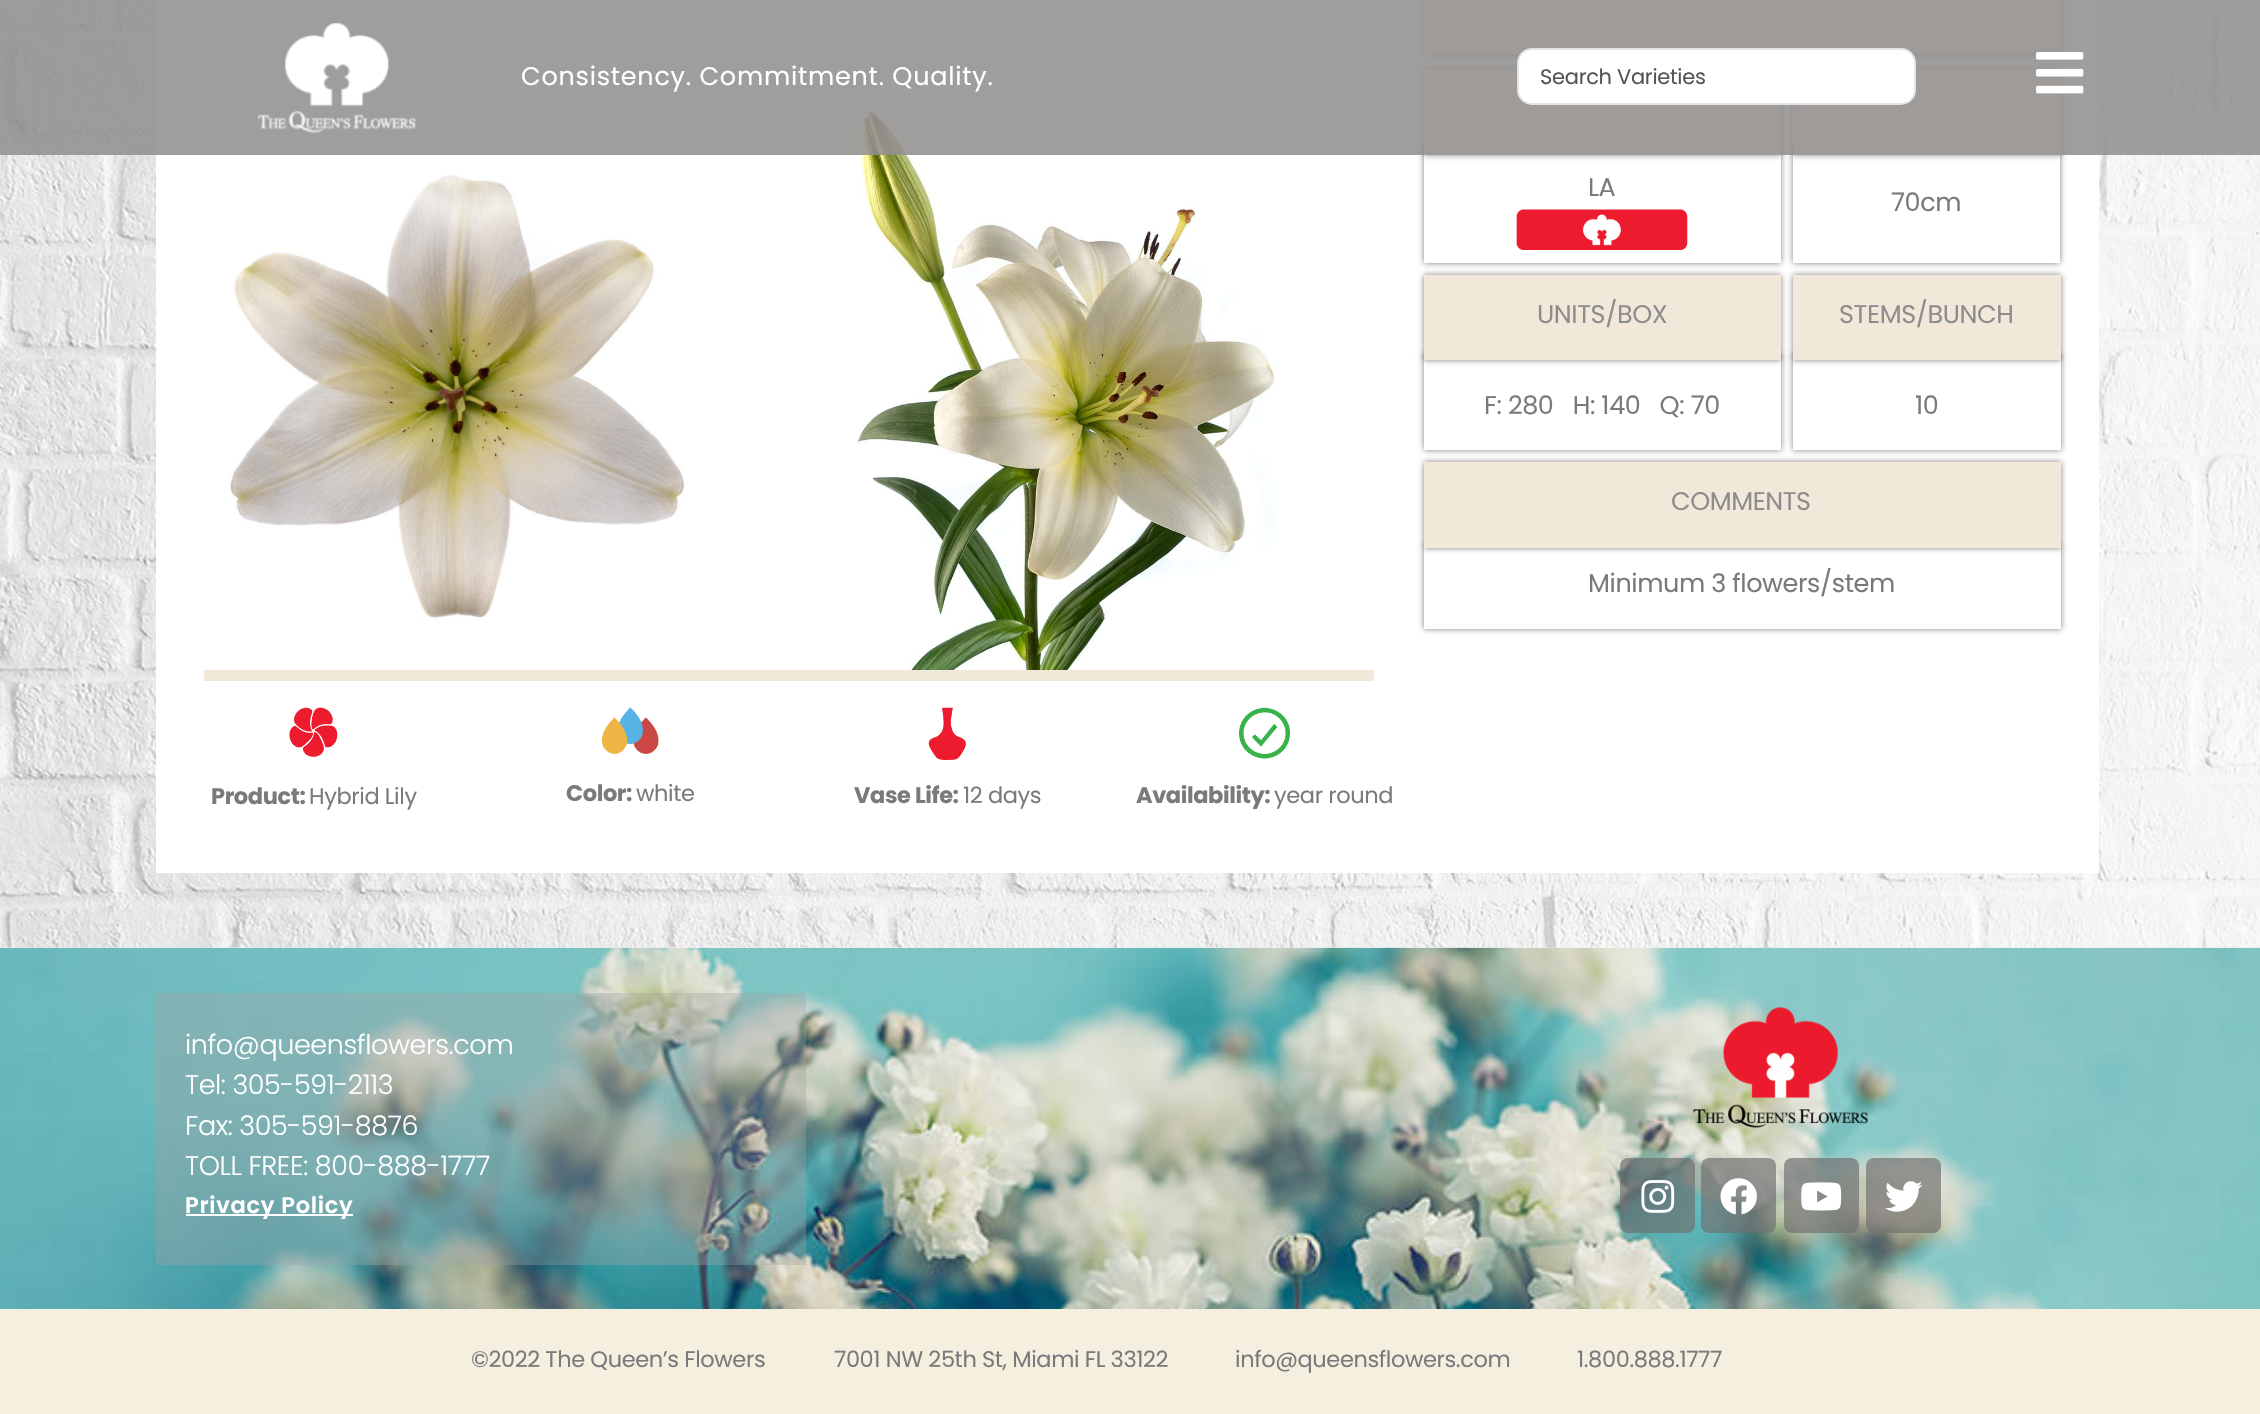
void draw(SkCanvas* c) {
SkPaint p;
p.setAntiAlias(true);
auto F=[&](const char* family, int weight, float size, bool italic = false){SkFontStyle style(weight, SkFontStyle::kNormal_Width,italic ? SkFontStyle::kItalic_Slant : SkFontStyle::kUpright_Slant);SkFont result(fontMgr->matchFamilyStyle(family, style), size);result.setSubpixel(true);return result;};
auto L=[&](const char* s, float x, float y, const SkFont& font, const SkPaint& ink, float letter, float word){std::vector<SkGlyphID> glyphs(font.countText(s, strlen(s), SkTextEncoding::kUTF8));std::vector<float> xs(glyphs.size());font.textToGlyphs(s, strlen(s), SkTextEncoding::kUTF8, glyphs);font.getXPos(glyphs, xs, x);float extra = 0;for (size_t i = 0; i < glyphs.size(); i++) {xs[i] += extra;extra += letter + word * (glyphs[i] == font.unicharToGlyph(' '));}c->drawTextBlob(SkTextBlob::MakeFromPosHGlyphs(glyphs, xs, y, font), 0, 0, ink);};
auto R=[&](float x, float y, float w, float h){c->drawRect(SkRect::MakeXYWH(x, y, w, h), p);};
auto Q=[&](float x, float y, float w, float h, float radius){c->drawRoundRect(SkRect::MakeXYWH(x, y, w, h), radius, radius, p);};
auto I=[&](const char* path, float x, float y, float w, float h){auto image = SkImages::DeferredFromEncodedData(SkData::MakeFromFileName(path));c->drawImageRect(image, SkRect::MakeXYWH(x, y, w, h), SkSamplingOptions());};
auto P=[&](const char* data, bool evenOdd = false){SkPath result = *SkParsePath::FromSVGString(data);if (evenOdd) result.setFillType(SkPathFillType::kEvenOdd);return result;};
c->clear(0xfff5efe0);
I("11.png",0,947,2260,362);
I("3.png",0,0,2260,948);
p.setColor(0x80ffffff);
R(0,0,2260,948);
p.setColor(0xffffffff);
R(156,0,1943,873);
p.setColor(0x80000000);
p.setMaskFilter(SkMaskFilter::MakeBlur(kNormal_SkBlurStyle, 3));
c->drawRect(SkRect::MakeXYWH(1424,-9,637,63),p);
p.setMaskFilter(nullptr);
p.setColor(0xfff2e8da);
R(1424,0,637,54);
p.setColor(0x80000000);
p.setMaskFilter(SkMaskFilter::MakeBlur(kNormal_SkBlurStyle, 3));
c->drawRect(SkRect::MakeXYWH(1424,69,357,86),p);
p.setMaskFilter(nullptr);
c->save();
c->clipPath(P("M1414 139h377v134h-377zm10 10h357v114h-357z",true),true);
p.setMaskFilter(SkMaskFilter::MakeBlur(kNormal_SkBlurStyle, 3));
c->drawRect(SkRect::MakeXYWH(1424,149,357,114),p);
p.setMaskFilter(nullptr);
c->restore();
p.setColor(0xfff2e8da);
R(1424,69,357,86);
p.setColor(0x80000000);
p.setMaskFilter(SkMaskFilter::MakeBlur(kNormal_SkBlurStyle, 3));
c->drawRect(SkRect::MakeXYWH(1793,69,268,86),p);
p.setMaskFilter(nullptr);
c->save();
c->clipPath(P("M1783 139h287v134h-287zm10 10h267v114h-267z",true),true);
p.setMaskFilter(SkMaskFilter::MakeBlur(kNormal_SkBlurStyle, 3));
c->drawRect(SkRect::MakeXYWH(1793,149,267,114),p);
p.setMaskFilter(nullptr);
c->restore();
p.setColor(0xfff2e8da);
R(1793,69,268,86);
I("6.png",857,111,419,559);
p.setColor(0xe0939090);
R(0,0,2260,155);
I("1.png",257,23,159,111);
auto f1 = F("Poppins",400,25.5);
p.setColor(0xffffffff);
L("Consistency. Commitment. Quality.",521,85,f1,p,.75,0);
c->drawRoundRect(SkRect::MakeXYWH(1518,49,397,55),14,14,p);
p.setStroke(true);
p.setStrokeWidth(2);
p.setColor(0xffe1e5eb);
c->drawRoundRect(SkRect::MakeXYWH(1518,49,397,55),14,14,p);
auto f2 = F("Poppins",400,21);
p.setStroke(false);
p.setColor(0xff545454);
L("Search Varieties",1540,84,f2,p,-.3,0);
I("2.png",2036,52,48,42);
p.setColor(0xff7a7a7a);
L("LA",1588,196,f1,p,-.4,0);
I("4.png",1516,209,172,41);
L("70cm",1891,211,f1,p,-.4,0);
p.setColor(0x80000000);
p.setMaskFilter(SkMaskFilter::MakeBlur(kNormal_SkBlurStyle, 3));
c->drawRect(SkRect::MakeXYWH(1424,275,357,85),p);
p.setMaskFilter(nullptr);
c->save();
c->clipPath(P("M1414 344h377v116h-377zm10 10h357v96h-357z",true),true);
p.setMaskFilter(SkMaskFilter::MakeBlur(kNormal_SkBlurStyle, 3));
c->drawRect(SkRect::MakeXYWH(1424,354,357,96),p);
p.setMaskFilter(nullptr);
c->restore();
p.setColor(0xfff2e8da);
R(1424,275,357,85);
p.setColor(0xff8d8d8d);
L("UNITS/BOX",1537,323,f1,p,-.4,0);
p.setColor(0x80000000);
p.setMaskFilter(SkMaskFilter::MakeBlur(kNormal_SkBlurStyle, 3));
c->drawRect(SkRect::MakeXYWH(1793,275,268,85),p);
p.setMaskFilter(nullptr);
c->save();
c->clipPath(P("M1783 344h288v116h-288zm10 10h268v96h-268z",true),true);
p.setMaskFilter(SkMaskFilter::MakeBlur(kNormal_SkBlurStyle, 3));
c->drawRect(SkRect::MakeXYWH(1793,354,268,96),p);
p.setMaskFilter(nullptr);
c->restore();
p.setColor(0xfff2e8da);
R(1793,275,268,85);
p.setColor(0xff8d8d8d);
L("STEMS/BUNCH",1839,323,f1,p,-.4,0);
p.setColor(0xff7a7a7a);
L("F: 280   H: 140   Q: 70",1484,414,f1,p,-.4,0);
L("10",1915,414,f1,p,-.4,0);
p.setColor(0x80000000);
p.setMaskFilter(SkMaskFilter::MakeBlur(kNormal_SkBlurStyle, 3));
c->drawRect(SkRect::MakeXYWH(1424,462,637,86),p);
p.setMaskFilter(nullptr);
c->save();
c->clipPath(P("M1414 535h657v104h-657zm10 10h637v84h-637z",true),true);
p.setMaskFilter(SkMaskFilter::MakeBlur(kNormal_SkBlurStyle, 3));
c->drawRect(SkRect::MakeXYWH(1424,545,637,84),p);
p.setMaskFilter(nullptr);
c->restore();
p.setColor(0xfff2e8da);
R(1424,462,637,86);
p.setColor(0xff8d8d8d);
L("COMMENTS",1671,510,f1,p,-.5,0);
p.setColor(0xff7a7a7a);
L("Minimum 3 flowers/stem",1588,592,f1,p,-.4,0);
I("5.png",228,175,460,445);
p.setColor(0xfff2e8da);
R(204,670,1170,11);
I("7.png",289,707,49,50);
auto f3 = F("Poppins",700,22.5);
p.setColor(0xff7a7a7a);
L("Product:",211,804,f3,p,-.4,0);
auto f4 = F("Poppins",400,22.5);
L("Hybrid Lily",309,804,f4,p,-.4,0);
I("8.png",601,707,58,47);
L("Color:",566,801,f3,p,-.4,0);
L("white",636,801,f4,p,-.4,0);
I("9.png",928,707,38,53);
L("Vase Life:",854,803,f3,p,-.4,0);
L("12 days",963,803,f4,p,-.4,0);
I("10.png",1239,707,51,52);
L("Availability:",1136,803,f3,p,-.4,0);
L("year round",1274,803,f4,p,-.4,0);
p.setColor(0x5ca2a2a2);
R(156,993,650,272);
auto f5 = F("Poppins",300,27);
p.setColor(0xffffffff);
L("info@queensflowers.com",185,1054,f5,p,-.4,0);
L("Tel: 305-591-2113",185,1094,f5,p,-.4,0);
L("Fax: 305-591-8876",185,1135,f5,p,-.4,0);
L("TOLL FREE: 800-888-1777",185,1175,f5,p,-.4,0);
R(186,1214,167,2);
auto f6 = F("Poppins",600,22.5);
L("Privacy Policy",185,1213,f6,p,.75,0);
I("12.png",1693,1007,175,121);
p.setColor(0xad6e6e6e);
Q(1620,1158,75,75,8);
I("13.png",1641,1180,34,33);
Q(1701,1158,75,75,8);
I("14.png",1720,1178,37,37);
Q(1784,1158,75,75,8);
I("15.png",1801,1182,41,29);
Q(1866,1158,75,75,8);
I("16.png",1885,1181,38,31);
p.setColor(0xff7a7a7a);
L("©2022 The Queen’s Flowers",471,1367,f4,p,-.4,0);
L("7001 NW 25th St, Miami FL 33122",834,1367,f4,p,-.4,0);
L("info@queensflowers.com",1235,1367,f4,p,-.4,0);
L("1.800.888.1777",1577,1367,f4,p,-.4,0);
}
